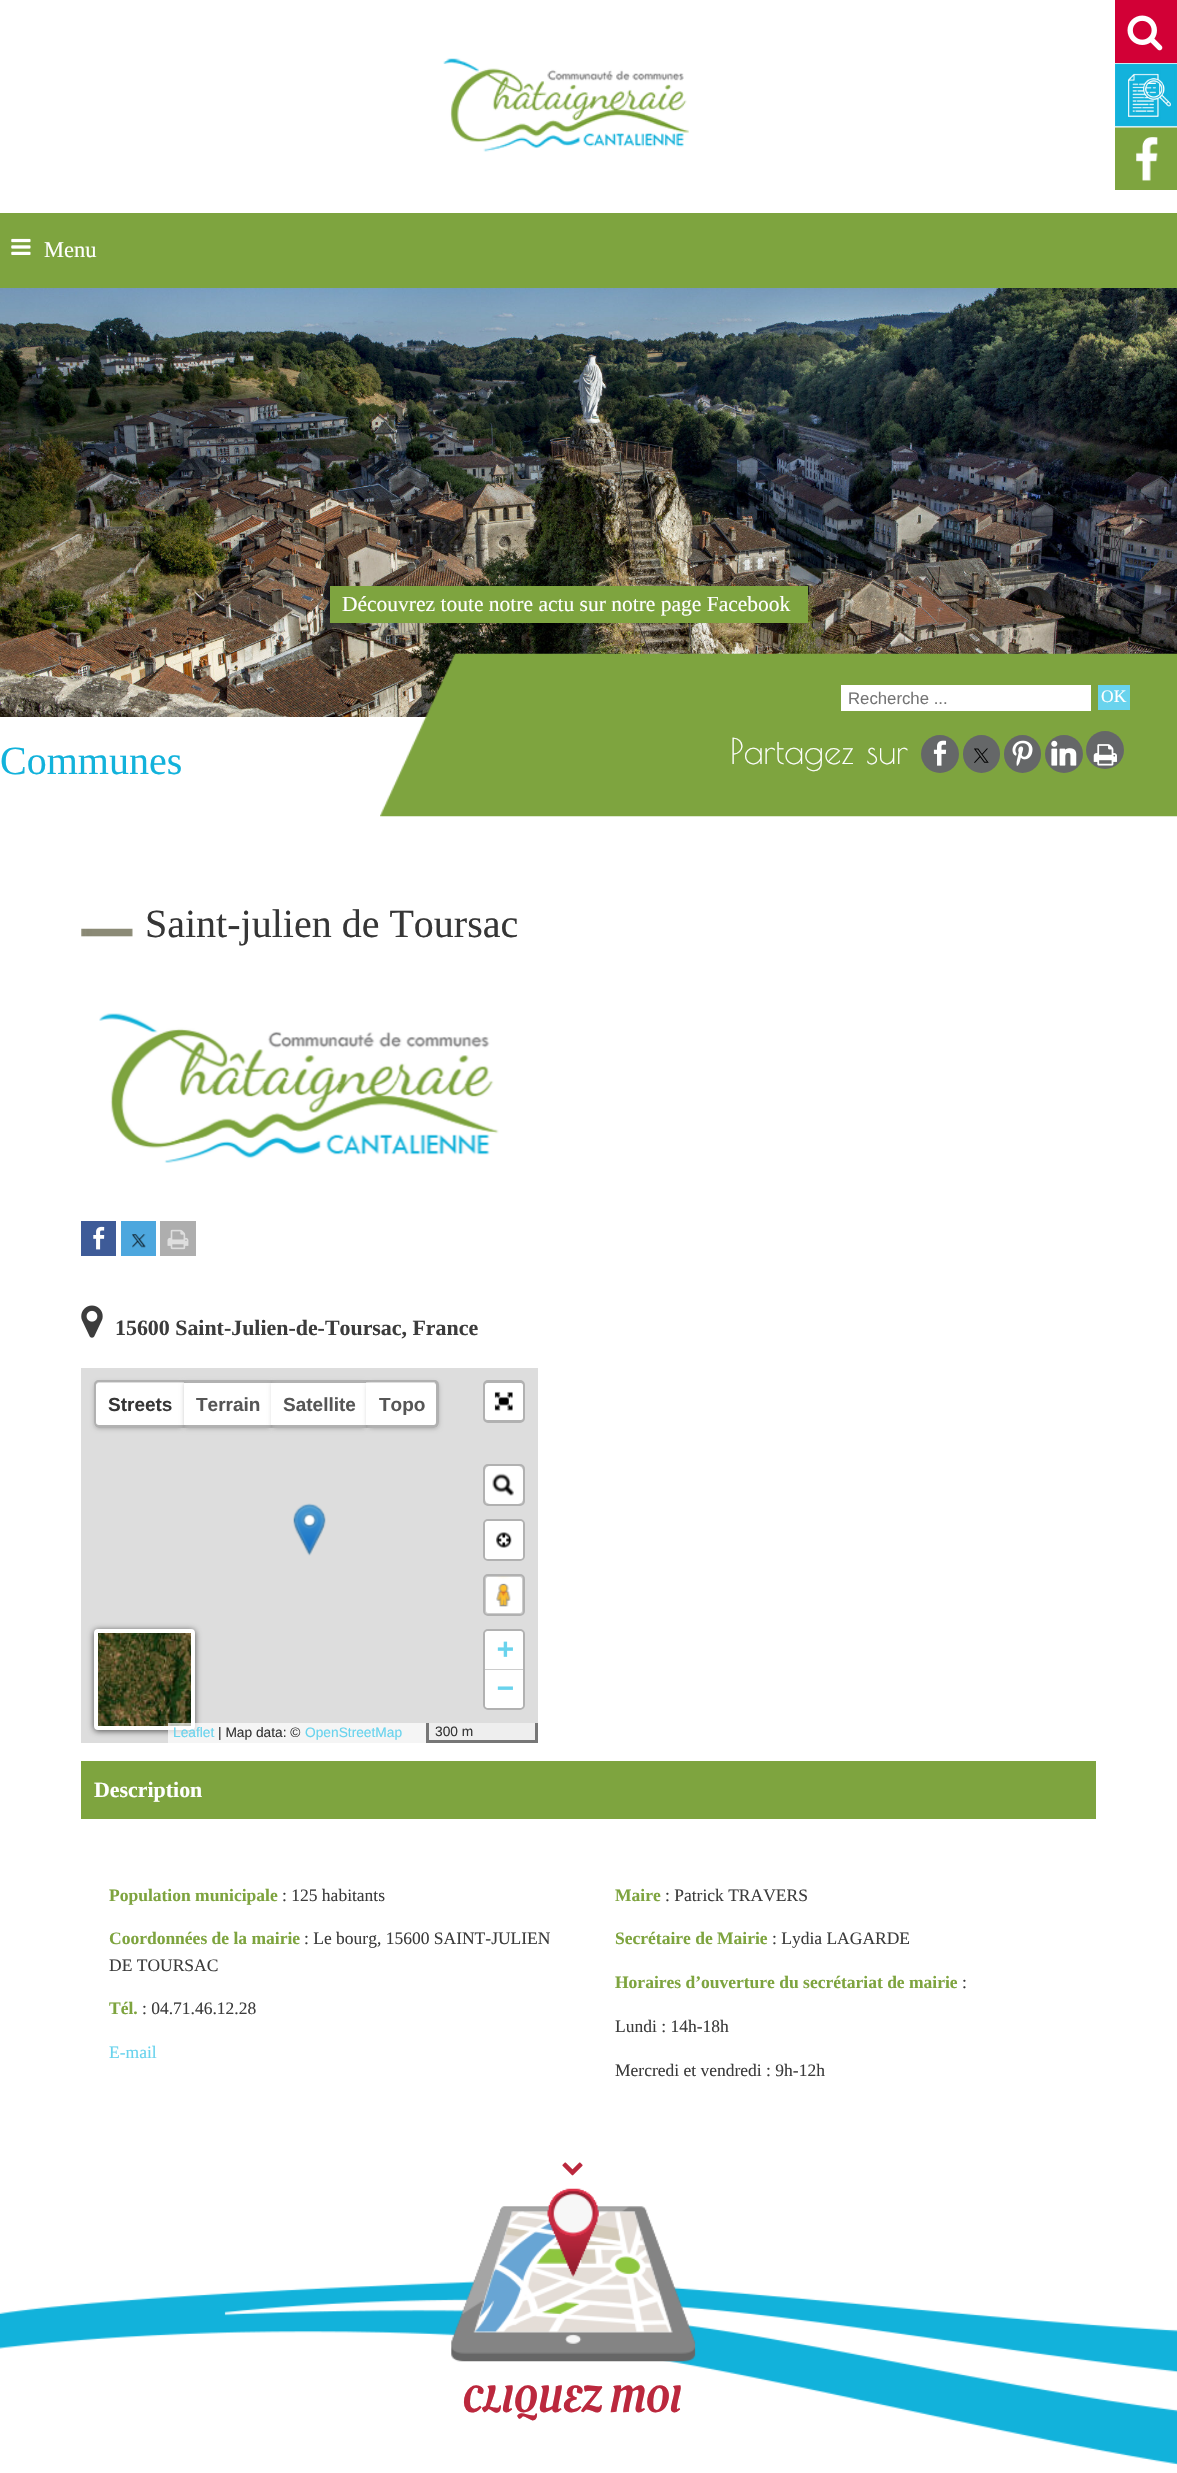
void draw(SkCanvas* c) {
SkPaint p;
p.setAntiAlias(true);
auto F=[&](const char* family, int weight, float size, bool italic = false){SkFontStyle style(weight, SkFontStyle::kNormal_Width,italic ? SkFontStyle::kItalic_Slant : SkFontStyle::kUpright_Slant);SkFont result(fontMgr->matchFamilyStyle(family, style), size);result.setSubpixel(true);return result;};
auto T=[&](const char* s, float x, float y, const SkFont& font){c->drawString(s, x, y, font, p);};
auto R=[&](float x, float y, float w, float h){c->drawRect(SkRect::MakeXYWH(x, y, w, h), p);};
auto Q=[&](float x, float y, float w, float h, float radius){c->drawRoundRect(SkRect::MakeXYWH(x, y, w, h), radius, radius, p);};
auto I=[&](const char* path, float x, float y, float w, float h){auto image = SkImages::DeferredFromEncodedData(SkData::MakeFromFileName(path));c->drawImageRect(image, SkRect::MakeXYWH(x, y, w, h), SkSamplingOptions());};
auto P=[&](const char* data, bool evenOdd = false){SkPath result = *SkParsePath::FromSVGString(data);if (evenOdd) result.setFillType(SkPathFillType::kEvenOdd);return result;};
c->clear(0xffffffff);
p.setColor(0xffd20036);
R(1115,0,62,63);
I("1.png",1127,15,36,36);
I("2.png",1115,63,62,64);
I("3.png",1115,127,62,63);
I("4.png",443,58,246,94);
p.setColor(0xff7ea43f);
R(0,213,1177,75);
I("5.png",11,238,20,17);
auto f1 = F("Liberation Serif",400,22.5);
p.setColor(0xffffffff);
T("Menu",44,257,f1);
I("6.png",0,288,1177,429);
p.setColor(0xff7ea43f);
R(330,586,478,37);
auto f2 = F("Liberation Serif",400,21.5);
p.setColor(0xffffffff);
T("Découvrez toute notre actu sur notre page Facebook",342,611,f2);
I("7.png",380,653,797,164);
auto f3 = F("Liberation Serif",400,40);
p.setColor(0xff12b2db);
T("Communes",0,774,f3);
p.setColor(0xffffffff);
R(841,685,250,26);
auto f4 = F("Liberation Sans",400,16.75);
p.setColor(0xff757575);
T("Recherche ...",848,704,f4);
p.setColor(0xff69d3ed);
R(1098,685,32,25);
auto f5 = F("Liberation Serif",400,17.5);
p.setColor(0xffffffff);
T("OK",1101,702,f5);
auto f6 = F("Poiret One",400,35);
T("Partagez sur",730,764,f6);
p.setColor(0xff656768);
c->drawCircle(940,754,19,p);
I("8.png",933,740,14,26);
Q(963,735,37,38,18.5);
I("9.png",974,748,15,15);
Q(1004,735,37,38,18.5);
I("10.png",1012,740,21,26);
c->drawCircle(1064,754,19,p);
I("11.png",1051,740,26,26);
c->drawCircle(1105,750,19,p);
I("12.png",1093,744,24,22);
I("13.png",81,928,52,9);
p.setColor(0xff363636);
T("Saint-julien de Toursac",145,937,f3);
I("14.png",99,1013,400,150);
p.setColor(0xff3e5b98);
R(81,1221,35,35);
I("15.png",93,1226,12,24);
p.setColor(0xff4da7de);
R(121,1221,35,35);
I("16.png",132,1234,14,14);
p.setColor(0xffaeaeae);
R(160,1221,36,35);
I("17.png",167,1229,22,21);
I("18.png",81,1305,22,33);
auto f7 = F("Liberation Serif",700,21.9);
p.setColor(0xff3c3c3c);
T("15600 Saint-Julien-de-Toursac, France",115,1335,f7);
p.setColor(0xffdddddd);
R(81,1368,457,375);
c->save();
c->clipPath(P("M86 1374h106v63h-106zm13 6h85v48h-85c-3 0-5-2-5-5v-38c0-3 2-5 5-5z",true),true);
p.setColor(0x4d000000);
p.setMaskFilter(SkMaskFilter::MakeBlur(kNormal_SkBlurStyle, 2.5));
c->drawRoundRect(SkRect::MakeXYWH(95,1383,88,45),4,4,p);
p.setMaskFilter(nullptr);
c->restore();
p.setColor(0xffffffff);
c->drawPath(P("M98.5 1383h85.5v42h-85.5c-1.5 0-2.5-1-2.5-2.5v-37c0-1.5 1-2.5 2.5-2.5z"),p);
p.setColor(0x33000000);
c->drawPath(P("M99 1380h85v48h-85c-3 0-5-3-5-6v-37c0-3 2-5 5-5zm0 2h85v43h-85c-2 0-3-1-3-3v-37c0-1 1-3 3-3z",true),p);
auto f8 = F("Liberation Sans",700,19);
p.setColor(0xff363636);
T("Streets",108,1411,f8);
c->save();
c->clipPath(P("M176 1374h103v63h-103zm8 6h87v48h-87z",true),true);
p.setColor(0x4d000000);
p.setMaskFilter(SkMaskFilter::MakeBlur(kNormal_SkBlurStyle, 2.5));
c->drawRect(SkRect::MakeXYWH(185,1383,85,45),p);
p.setMaskFilter(nullptr);
c->restore();
p.setColor(0xffffffff);
R(184,1383,87,42);
p.setColor(0x33000000);
R(184,1380,87,3);
R(184,1425,87,3);
p.setColor(0xff565656);
T("Terrain",196,1411,f8);
c->save();
c->clipPath(P("M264 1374h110v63h-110zm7 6h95v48h-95z",true),true);
p.setColor(0x4d000000);
p.setMaskFilter(SkMaskFilter::MakeBlur(kNormal_SkBlurStyle, 2.5));
c->drawRect(SkRect::MakeXYWH(273,1383,92,45),p);
p.setMaskFilter(nullptr);
c->restore();
p.setColor(0xffffffff);
R(271,1383,95,42);
p.setColor(0x33000000);
R(271,1380,95,3);
R(271,1425,95,3);
p.setColor(0xff565656);
T("Satellite",283,1411,f8);
c->save();
c->clipPath(P("M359 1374h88v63h-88zm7 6h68c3 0 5 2 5 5v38c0 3-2 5-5 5h-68z",true),true);
p.setColor(0x4d000000);
p.setMaskFilter(SkMaskFilter::MakeBlur(kNormal_SkBlurStyle, 2.5));
c->drawRoundRect(SkRect::MakeXYWH(368,1383,70,45),4,4,p);
p.setMaskFilter(nullptr);
c->restore();
p.setColor(0xffffffff);
c->drawPath(P("M366 1383h67.5c1.5 0 2.5 1 2.5 2.5v37c0 1.5-1 2.5-2.5 2.5h-67.5z"),p);
p.setColor(0x33000000);
c->drawPath(P("M366 1380h68c3 0 5 2 5 5v37c0 3-2 6-5 6h-68zm0 2h68c1 0 2 2 2 3v37c0 2-1 3-2 3h-68z",true),p);
p.setColor(0xff565656);
T("Topo",379,1411,f8);
p.setStroke(true);
p.setStrokeWidth(3);
p.setColor(0xffb1b1b1);
c->drawRoundRect(SkRect::MakeXYWH(484.5,1381.5,39,40),3.5,3.5,p);
p.setStroke(false);
p.setColor(0xffffffff);
Q(485,1383,38,37,2.5);
I("19.png",494,1391,19,20);
p.setColor(0xa6000000);
p.setMaskFilter(SkMaskFilter::MakeBlur(kNormal_SkBlurStyle, 3));
c->drawRoundRect(SkRect::MakeXYWH(94,1630,101,101),4,4,p);
p.setMaskFilter(nullptr);
p.setStroke(true);
p.setStrokeWidth(4);
p.setColor(0xffffffff);
c->drawRoundRect(SkRect::MakeXYWH(96,1631,97,97),2,2,p);
I("20.png",98,1633,93,93);
p.setStroke(false);
p.setColor(0xfff8f8f8);
Q(485,1466,38,38,2.5);
p.setStroke(true);
p.setStrokeWidth(3);
p.setColor(0x33000000);
c->drawRoundRect(SkRect::MakeXYWH(484.5,1465.5,39,39),3.5,3.5,p);
p.setStroke(false);
p.setColor(0xffffffff);
Q(485,1466,38,38,5);
I("21.png",492,1473,22,23);
p.setStroke(true);
p.setColor(0xffb1b1b1);
c->drawRoundRect(SkRect::MakeXYWH(484.5,1520.5,39,39),3.5,3.5,p);
p.setStroke(false);
p.setColor(0xffffffff);
Q(485,1521,38,38,2.5);
I("22.png",496,1532,16,16);
Q(485,1576,38,38,2.5);
p.setStroke(true);
p.setColor(0x33000000);
c->drawRoundRect(SkRect::MakeXYWH(484.5,1575.5,39,39),3.5,3.5,p);
I("23.png",496,1576,15,31);
p.setColor(0xffb1b1b1);
c->drawRoundRect(SkRect::MakeXYWH(484.5,1630.5,39,78),3.5,3.5,p);
p.setStroke(false);
p.setColor(0xffffffff);
c->drawPath(P("M487.5 1631h33c1.5 0 2.5 1 2.5 2.5v36.5h-38v-36.5c0-1.5 1-2.5 2.5-2.5z"),p);
p.setColor(0xffcccccc);
R(485,1669,38,1);
auto f9 = F("DejaVu Sans Mono",700,28);
p.setColor(0xff69d3ed);
T("+",497,1658,f9);
p.setColor(0xffffffff);
c->drawPath(P("M485 1670h38v35.5c0 1.5-1 2.5-2.5 2.5h-33c-1.5 0-2.5-1-2.5-2.5z"),p);
p.setColor(0xff69d3ed);
T("−",497,1697,f9);
p.setColor(0xb3ffffff);
R(168,1723,240,20);
auto f10 = F("Liberation Sans",400,13.75);
p.setColor(0xff69d3ed);
T("Leaflet",173,1737,f10);
p.setColor(0xff363636);
T("| Map data: ©",218,1737,f10);
p.setColor(0xff69d3ed);
T("OpenStreetMap",305,1737,f10);
p.setColor(0xfff5f5f5);
R(408,1723,18,20);
p.setColor(0xffeeeeee);
R(429,1723,106,17);
p.setColor(0xff777777);
R(535,1723,3,20);
R(426,1740,112,3);
R(426,1723,3,20);
p.setColor(0xff363636);
T("300 m",435,1736,f10);
I("24.png",293,1503,33,53);
p.setColor(0xff7ea43f);
R(81,1761,1015,58);
p.setColor(0xffffffff);
T("Description",94,1797,f7);
auto f11 = F("Liberation Serif",700,17.5);
p.setColor(0xff7ea43f);
T("Population municipale",109,1901,f11);
p.setColor(0xff3c3c3c);
T(": 125 habitants",282,1901,f5);
p.setColor(0xff7ea43f);
T("Coordonnées de la mairie",109,1944,f11);
p.setColor(0xff3c3c3c);
T(": Le bourg, 15600 SAINT-JULIEN",304,1944,f5);
T("DE TOURSAC",109,1971,f5);
p.setColor(0xff7ea43f);
T("Tél.",109,2014,f11);
p.setColor(0xff3c3c3c);
T(": 04.71.46.12.28",142,2014,f5);
p.setColor(0xff69d3ed);
T("E-mail",109,2058,f5);
p.setColor(0xff7ea43f);
T("Maire",615,1901,f11);
p.setColor(0xff3c3c3c);
T(": Patrick TRAVERS",665,1901,f5);
p.setColor(0xff7ea43f);
T("Secrétaire de Mairie",615,1944,f11);
p.setColor(0xff3c3c3c);
T(": Lydia LAGARDE",772,1944,f5);
p.setColor(0xff7ea43f);
T("Horaires d’ouverture du secrétariat de mairie",615,1988,f11);
p.setColor(0xff3c3c3c);
T(":",962,1988,f5);
T("Lundi : 14h-18h",615,2032,f5);
T("Mercredi et vendredi : 9h-12h",615,2076,f5);
I("25.png",0,2281,1177,184);
I("26.png",562,2162,21,14);
I("27.png",451,2188,245,174);
auto f12 = F("Oleo Script",400,37.5);
p.setColor(0xffbb283d);
T("CLIQUEZ MOI",462,2412,f12);
}
